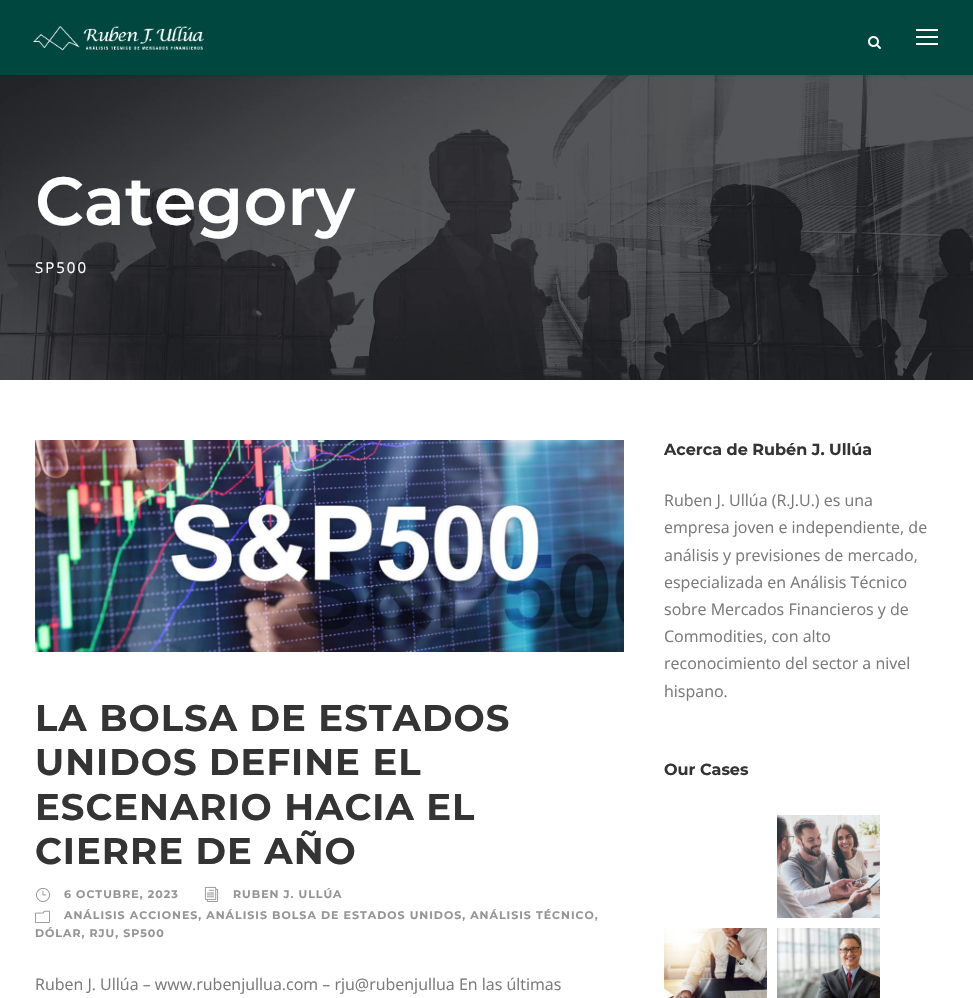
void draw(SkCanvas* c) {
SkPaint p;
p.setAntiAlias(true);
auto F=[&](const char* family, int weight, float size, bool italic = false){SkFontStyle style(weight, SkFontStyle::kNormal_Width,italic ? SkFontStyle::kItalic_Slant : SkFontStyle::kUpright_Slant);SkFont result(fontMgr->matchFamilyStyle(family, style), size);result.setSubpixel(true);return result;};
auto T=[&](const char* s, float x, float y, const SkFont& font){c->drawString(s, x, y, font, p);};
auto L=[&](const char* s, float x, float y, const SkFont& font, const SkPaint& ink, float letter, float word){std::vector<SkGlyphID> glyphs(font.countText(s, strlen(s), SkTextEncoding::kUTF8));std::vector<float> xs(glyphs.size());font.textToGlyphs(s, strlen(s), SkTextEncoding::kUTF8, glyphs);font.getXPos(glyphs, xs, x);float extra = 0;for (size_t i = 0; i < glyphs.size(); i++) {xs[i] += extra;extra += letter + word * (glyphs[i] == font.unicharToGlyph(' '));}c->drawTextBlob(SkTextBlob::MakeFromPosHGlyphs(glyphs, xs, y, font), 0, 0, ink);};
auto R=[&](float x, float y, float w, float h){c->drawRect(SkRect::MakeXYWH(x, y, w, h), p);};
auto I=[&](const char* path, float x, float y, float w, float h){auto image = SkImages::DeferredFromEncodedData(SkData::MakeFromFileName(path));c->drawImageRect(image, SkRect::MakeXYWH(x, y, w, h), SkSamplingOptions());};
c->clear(0xffffffff);
I("3.png",0,75,973,305);
p.setColor(0x1a000000);
p.setMaskFilter(SkMaskFilter::MakeBlur(kNormal_SkBlurStyle, 1));
c->drawRect(SkRect::MakeXYWH(0,1,973,75),p);
p.setMaskFilter(nullptr);
p.setColor(0xff004740);
R(0,0,973,75);
I("1.png",33,26,171,25);
I("2.png",868,36,13,13);
p.setColor(0xffffffff);
R(916,29,22,2);
R(916,36,22,2);
R(916,43,22,2);
auto f1 = F("Montserrat",600,68);
T("Category",35,225,f1);
auto f2 = F("Open Sans",400,15);
L("SP500",35,273,f2,p,2,0);
auto f3 = F("Montserrat",700,16);
p.setColor(0xff343434);
T("Acerca de Rubén J. Ullúa",664,455,f3);
auto f4 = F("Open Sans",400,16);
p.setColor(0xff7a7a7a);
T("Ruben J. Ullúa (R.J.U.) es una",664,506,f4);
T("empresa joven e independiente, de",664,533,f4);
T("análisis y previsiones de mercado,",664,561,f4);
T("especializada en Análisis Técnico",664,588,f4);
T("sobre Mercados Financieros y de",664,615,f4);
T("Commodities, con alto",664,642,f4);
T("reconocimiento del sector a nivel",664,669,f4);
T("hispano.",664,697,f4);
p.setColor(0xff343434);
T("Our Cases",664,775,f3);
I("4.png",777,815,103,103);
I("5.png",664,928,103,70);
I("6.png",777,928,103,70);
I("7.png",35,440,589,212);
auto f5 = F("Montserrat",700,37);
L("LA BOLSA DE ESTADOS",35,731,f5,p,1,0);
L("UNIDOS DEFINE EL",35,775,f5,p,1,0);
L("ESCENARIO HACIA EL",35,820,f5,p,1,0);
L("CIERRE DE AÑO",35,864,f5,p,1,0);
I("8.png",36,888,14,14);
auto f6 = F("Montserrat",700,11);
p.setColor(0xff959595);
L("6 OCTUBRE, 2023",64,898,f6,p,1,0);
I("9.png",204,886,15,16);
L("RUBEN J. ULLÚA",233,898,f6,p,1,0);
I("10.png",35,910,15,13);
L("ANÁLISIS ACCIONES, ANÁLISIS BOLSA DE ESTADOS UNIDOS, ANÁLISIS TÉCNICO,",64,919,f6,p,1,0);
L("DÓLAR, RJU, SP500",35,937,f6,p,1,0);
p.setColor(0xff7a7a7a);
T("Ruben J. Ullúa – www.rubenjullua.com – rju@rubenjullua En las últimas",35,990,f4);
}
